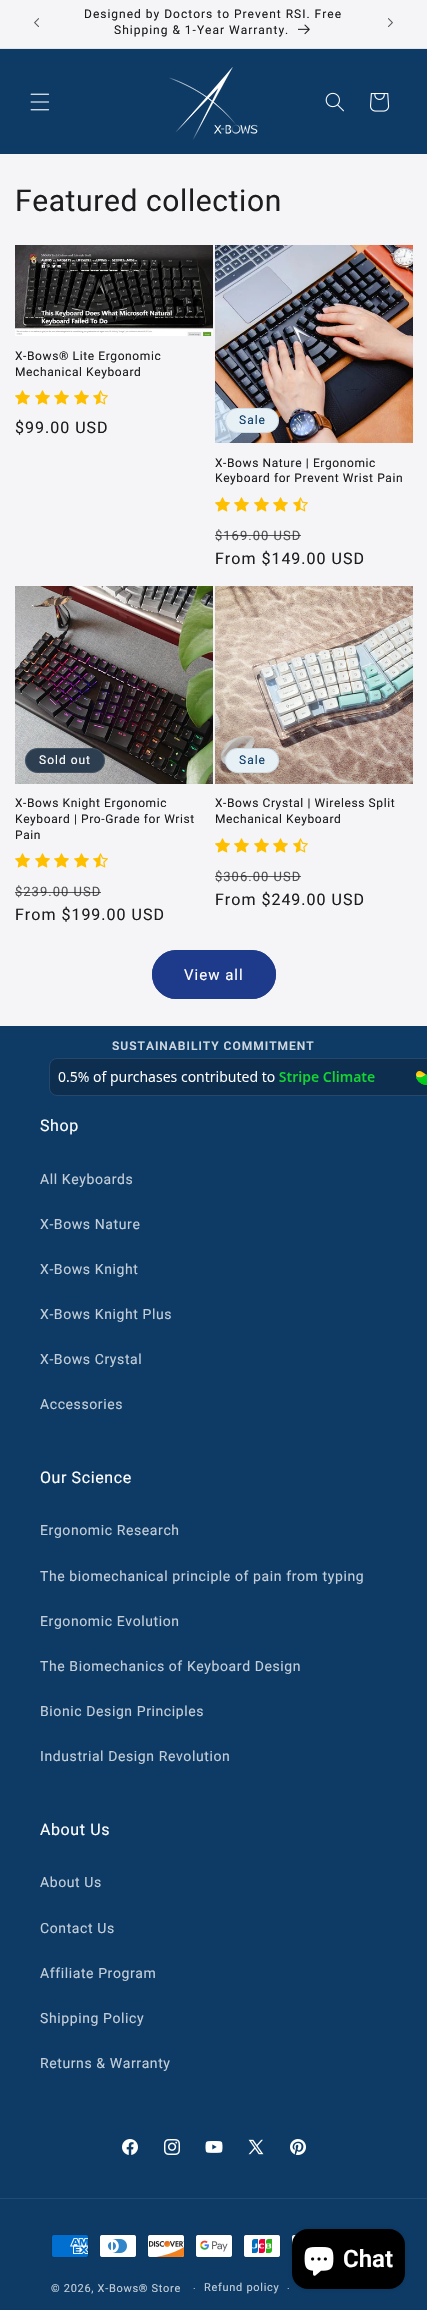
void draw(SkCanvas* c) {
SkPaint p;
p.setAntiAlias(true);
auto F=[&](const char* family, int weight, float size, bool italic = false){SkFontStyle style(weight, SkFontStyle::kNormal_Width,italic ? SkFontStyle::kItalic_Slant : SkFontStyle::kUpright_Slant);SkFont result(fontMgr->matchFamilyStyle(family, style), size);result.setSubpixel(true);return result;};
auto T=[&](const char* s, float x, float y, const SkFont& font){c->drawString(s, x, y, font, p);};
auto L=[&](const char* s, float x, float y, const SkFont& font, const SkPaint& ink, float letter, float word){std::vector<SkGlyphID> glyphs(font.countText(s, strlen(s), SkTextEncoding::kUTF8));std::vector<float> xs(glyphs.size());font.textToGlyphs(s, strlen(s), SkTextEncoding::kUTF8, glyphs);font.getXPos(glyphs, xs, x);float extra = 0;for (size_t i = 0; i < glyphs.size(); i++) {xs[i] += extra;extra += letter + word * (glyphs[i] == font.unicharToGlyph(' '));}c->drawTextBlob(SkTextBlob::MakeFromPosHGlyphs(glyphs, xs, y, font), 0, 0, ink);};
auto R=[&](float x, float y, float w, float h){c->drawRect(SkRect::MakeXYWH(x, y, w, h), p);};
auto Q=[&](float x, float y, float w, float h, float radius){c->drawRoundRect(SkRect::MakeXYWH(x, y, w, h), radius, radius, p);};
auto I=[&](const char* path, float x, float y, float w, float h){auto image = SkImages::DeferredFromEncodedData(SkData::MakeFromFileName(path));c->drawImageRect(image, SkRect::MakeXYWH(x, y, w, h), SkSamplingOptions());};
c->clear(0xfff5f5f7);
p.setColor(0xffe4e4e6);
R(0,48,427,1);
I("1.png",34,18,5,9);
auto f1 = F("Roboto",400,12);
p.setColor(0xff1d1d1f);
L("Designed by Doctors to Prevent RSI. Free",84,18,f1,p,1,0);
L("Shipping & 1-Year Warranty.",114,34,f1,p,1,0);
I("2.png",298,24,12,11);
I("3.png",388,18,5,9);
p.setColor(0xff0d3b66);
R(0,49,427,105);
I("4.png",30,93,20,18);
I("5.png",169,67,89,73);
I("6.png",325,92,19,20);
I("7.png",370,93,20,19);
auto f2 = F("Roboto",400,30);
p.setColor(0xff1d1d1f);
L("Featured collection",15,211,f2,p,.6,0);
I("8.png",15,245,198,91);
L("X-Bows® Lite Ergonomic",15,360,f1,p,.6,0);
L("Mechanical Keyboard",15,376,f1,p,.6,0);
I("9.png",15,390,15,15);
I("9.png",35,390,15,15);
I("9.png",54,390,15,15);
I("9.png",74,390,15,15);
I("10.png",93,390,15,15);
auto f3 = F("Roboto",400,16);
L("$99.00 USD",15,433,f3,p,1,0);
I("11.png",215,245,198,198);
p.setColor(0xffe6f0f5);
Q(225,408,54,25,12.5);
p.setStroke(true);
p.setStrokeWidth(1);
p.setColor(0x1a0d3b66);
c->drawRoundRect(SkRect::MakeXYWH(225.5,408.5,53,24),12,12,p);
p.setStroke(false);
p.setColor(0xff0d3b66);
L("Sale",239,424,f1,p,1,0);
p.setColor(0xff1d1d1f);
L("X-Bows Nature | Ergonomic",215,467,f1,p,.6,0);
L("Keyboard for Prevent Wrist Pain",215,482,f1,p,.6,0);
I("9.png",215,497,15,15);
I("9.png",234,497,15,15);
I("9.png",254,497,15,15);
I("9.png",273,497,15,15);
I("10.png",293,497,15,15);
auto f4 = F("Roboto",400,13);
p.setColor(0xff535355);
L("$169.00 USD",215,540,f4,p,1,0);
p.setColor(0xbf1d1d1f);
R(215,535,86,1);
p.setColor(0xff1d1d1f);
L("From $149.00 USD",215,564,f3,p,1,0);
I("12.png",15,586,198,198);
p.setColor(0xff2c3e50);
Q(25,748,80,25,12.5);
p.setStroke(true);
p.setColor(0x1affffff);
c->drawRoundRect(SkRect::MakeXYWH(25.5,748.5,79,24),12,12,p);
p.setStroke(false);
p.setColor(0xffffffff);
L("Sold out",39,764,f1,p,1,0);
p.setColor(0xff1d1d1f);
L("X-Bows Knight Ergonomic",15,807,f1,p,.6,0);
L("Keyboard | Pro-Grade for Wrist",15,823,f1,p,.6,0);
L("Pain",15,839,f1,p,.6,0);
I("9.png",15,853,15,15);
I("9.png",35,853,15,15);
I("9.png",54,853,15,15);
I("9.png",74,853,15,15);
I("10.png",93,853,15,15);
p.setColor(0xff535355);
L("$239.00 USD",15,896,f4,p,1,0);
p.setColor(0xbf1d1d1f);
R(15,892,86,1);
p.setColor(0xff1d1d1f);
L("From $199.00 USD",15,920,f3,p,1,0);
I("13.png",215,586,198,198);
p.setColor(0xffe6f0f5);
Q(225,748,54,25,12.5);
p.setStroke(true);
p.setColor(0x1a0d3b66);
c->drawRoundRect(SkRect::MakeXYWH(225.5,748.5,53,24),12,12,p);
p.setStroke(false);
p.setColor(0xff0d3b66);
L("Sale",239,764,f1,p,1,0);
p.setColor(0xff1d1d1f);
L("X-Bows Crystal | Wireless Split",215,807,f1,p,.6,0);
L("Mechanical Keyboard",215,823,f1,p,.6,0);
I("9.png",215,838,15,15);
I("9.png",234,838,15,15);
I("9.png",254,838,15,15);
I("9.png",273,838,15,15);
I("10.png",293,838,15,15);
p.setColor(0xff535355);
L("$306.00 USD",215,881,f4,p,1,0);
p.setColor(0xbf1d1d1f);
R(215,876,86,1);
p.setColor(0xff1d1d1f);
L("From $249.00 USD",215,905,f3,p,1,0);
p.setColor(0xff1e3a8a);
Q(152,950,124,49,24.5);
p.setStroke(true);
p.setStrokeWidth(2);
c->drawRoundRect(SkRect::MakeXYWH(153,951,122,47),23.5,23.5,p);
auto f5 = F("Roboto",400,15);
p.setStroke(false);
p.setColor(0xffffffff);
L("View all",184,980,f5,p,1,0);
p.setColor(0xff0d3b66);
R(0,1026,427,1284);
auto f6 = F("Roboto",600,12);
p.setColor(0xffcfd8e0);
L("SUSTAINABILITY COMMITMENT",112,1050,f6,p,1,0);
I("14.png",49,1058,378,38);
p.setColor(0xffffffff);
L("Shop",40,1131,f3,p,.6,0);
auto f7 = F("Roboto",400,14);
p.setColor(0xffc3ced9);
L("All Keyboards",40,1184,f7,p,.6,0);
L("X-Bows Nature",40,1229,f7,p,.6,0);
L("X-Bows Knight",40,1274,f7,p,.6,0);
L("X-Bows Knight Plus",40,1319,f7,p,.6,0);
L("X-Bows Crystal",40,1364,f7,p,.6,0);
L("Accessories",40,1409,f7,p,.6,0);
p.setColor(0xffffffff);
L("Our Science",40,1483,f3,p,.6,0);
p.setColor(0xffc3ced9);
L("Ergonomic Research",40,1535,f7,p,.6,0);
L("The biomechanical principle of pain from typing",40,1581,f7,p,.6,0);
L("Ergonomic Evolution",40,1626,f7,p,.6,0);
L("The Biomechanics of Keyboard Design",40,1671,f7,p,.6,0);
L("Bionic Design Principles",40,1716,f7,p,.6,0);
L("Industrial Design Revolution",40,1761,f7,p,.6,0);
p.setColor(0xffffffff);
L("About Us",40,1835,f3,p,.6,0);
p.setColor(0xffc3ced9);
L("About Us",40,1887,f7,p,.6,0);
L("Contact Us",40,1933,f7,p,.6,0);
L("Affiliate Program",40,1978,f7,p,.6,0);
L("Shipping Policy",40,2023,f7,p,.6,0);
L("Returns & Warranty",40,2068,f7,p,.6,0);
I("15.png",122,2139,16,16);
I("16.png",164,2139,16,16);
I("17.png",205,2141,18,12);
I("18.png",248,2139,16,16);
I("19.png",290,2139,16,16);
p.setColor(0xff204b72);
R(0,2198,427,1);
I("20.png",51,2234,38,24);
I("21.png",99,2234,38,24);
I("22.png",147,2234,38,24);
I("23.png",195,2234,38,24);
I("24.png",243,2234,38,24);
I("25.png",291,2234,6,23);
auto f8 = F("Roboto",400,11);
p.setColor(0xffc3ced9);
L("© 2026, X-Bows® Store",51,2292,f8,p,.7,0);
auto f9 = F("Roboto",400,10);
L("·",193,2292,f9,p,.7,0);
L("Refund policy",204,2291,f8,p,.7,0);
L("·",287,2292,f9,p,.7,0);
p.setColor(0x26000000);
p.setMaskFilter(SkMaskFilter::MakeBlur(kNormal_SkBlurStyle, 2.5));
c->drawRoundRect(SkRect::MakeXYWH(292,2229,113,60),16,16,p);
p.setMaskFilter(nullptr);
p.setColor(0xff000000);
Q(292,2229,113,60,16);
I("26.png",304,2247,30,29);
auto f10 = F("Roboto",600,24);
p.setColor(0xffffffff);
T("Chat",343,2267,f10);
}
